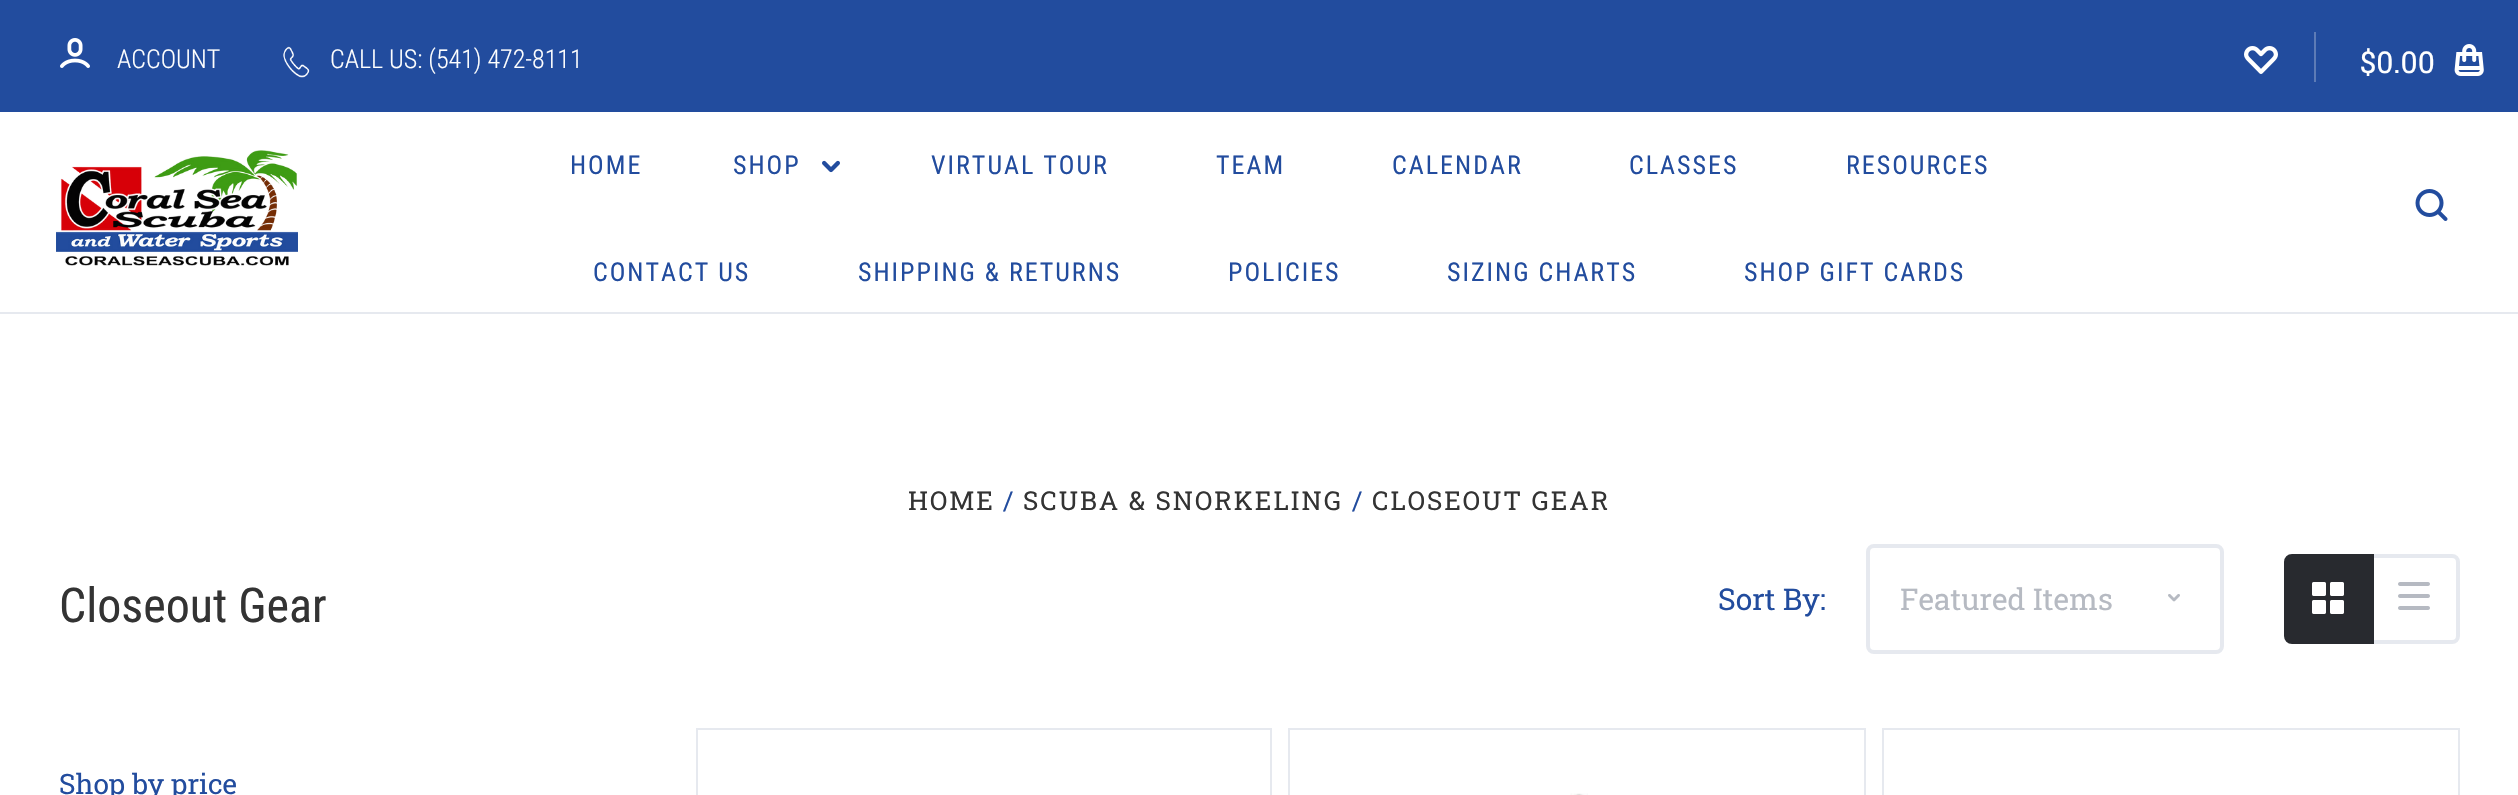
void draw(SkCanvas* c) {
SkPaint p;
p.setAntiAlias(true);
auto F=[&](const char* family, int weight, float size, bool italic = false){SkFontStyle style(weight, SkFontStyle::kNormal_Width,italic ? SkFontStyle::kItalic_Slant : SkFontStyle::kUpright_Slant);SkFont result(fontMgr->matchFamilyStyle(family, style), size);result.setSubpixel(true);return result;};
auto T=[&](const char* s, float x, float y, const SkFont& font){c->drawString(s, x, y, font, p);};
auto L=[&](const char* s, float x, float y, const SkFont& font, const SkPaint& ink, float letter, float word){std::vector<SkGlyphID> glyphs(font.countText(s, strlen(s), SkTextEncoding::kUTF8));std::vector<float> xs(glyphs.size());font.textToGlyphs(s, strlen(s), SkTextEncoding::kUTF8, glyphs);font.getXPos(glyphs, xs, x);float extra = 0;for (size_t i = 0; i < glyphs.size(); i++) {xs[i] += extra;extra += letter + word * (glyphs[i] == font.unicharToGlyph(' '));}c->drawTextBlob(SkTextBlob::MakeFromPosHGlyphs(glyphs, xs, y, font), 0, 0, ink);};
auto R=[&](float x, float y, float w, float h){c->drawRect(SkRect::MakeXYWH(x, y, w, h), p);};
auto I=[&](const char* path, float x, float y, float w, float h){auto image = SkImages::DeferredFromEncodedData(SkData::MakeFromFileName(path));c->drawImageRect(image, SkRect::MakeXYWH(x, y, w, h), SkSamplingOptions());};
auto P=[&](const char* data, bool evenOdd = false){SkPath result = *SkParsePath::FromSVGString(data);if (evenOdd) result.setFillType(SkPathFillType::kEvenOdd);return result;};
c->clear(0xffffffff);
p.setColor(0xffe6e9ef);
R(0,312,2518,2);
p.setColor(0xff224c9e);
R(0,0,2518,112);
I("1.png",60,38,30,30);
auto f1 = F("Roboto Condensed",300,26);
p.setColor(0xffffffff);
T("ACCOUNT",117,68,f1);
I("2.png",283,46,27,32);
T("CALL US: (541) 472-8111",330,68,f1);
I("3.png",2244,46,34,28);
p.setColor(0xff5d7bb6);
R(2314,32,2,50);
auto f2 = F("Roboto Slab",400,30);
p.setColor(0xffffffff);
T("$0.00",2360,73,f2);
I("4.png",2454,44,30,32);
I("5.png",56,150,242,116);
auto f3 = F("Roboto Condensed",400,26);
p.setColor(0xff224c9e);
L("HOME",570,174,f3,p,2,0);
L("SHOP",733,174,f3,p,2,0);
I("6.png",822,160,18,13);
L("VIRTUAL TOUR",931,174,f3,p,2,0);
L("TEAM",1216,174,f3,p,2,0);
L("CALENDAR",1392,174,f3,p,2,0);
L("CLASSES",1629,174,f3,p,2,0);
L("RESOURCES",1846,174,f3,p,2,0);
L("CONTACT US",593,281,f3,p,2,0);
L("SHIPPING & RETURNS",858,281,f3,p,2,0);
L("POLICIES",1228,281,f3,p,2,0);
L("SIZING CHARTS",1447,281,f3,p,2,0);
L("SHOP GIFT CARDS",1744,281,f3,p,2,0);
I("7.png",2415,189,33,32);
auto f4 = F("Roboto Slab",400,26);
p.setColor(0xff333333);
L("HOME",908,510,f4,p,2,0);
p.setColor(0xff224c9e);
L("/",1003,510,f4,p,2,0);
p.setColor(0xff333333);
L("SCUBA & SNORKELING",1023,510,f4,p,2,0);
p.setColor(0xff224c9e);
L("/",1352,510,f4,p,2,0);
p.setColor(0xff333333);
L("CLOSEOUT GEAR",1372,510,f4,p,2,0);
auto f5 = F("Roboto Condensed",400,48);
T("Closeout Gear",59,622,f5);
p.setColor(0xff224c9e);
T("Sort By:",1718,610,f2);
p.setStroke(true);
p.setStrokeWidth(4);
p.setColor(0xffe6e9ef);
c->drawRoundRect(SkRect::MakeXYWH(1868,546,354,106),6,6,p);
p.setStroke(false);
p.setColor(0xffb6bac2);
T("Featured Items",1900,610,f2);
I("8.png",2168,594,12,8);
p.setStroke(true);
p.setColor(0xffe6e9ef);
c->drawPath(P("M2372 556h80c3.5 0 6 2.5 6 6v74c0 3.5-2.5 6-6 6h-80z"),p);
p.setStroke(false);
p.setColor(0xff282a2f);
c->drawPath(P("M2292 556h80v86h-80c-3.5 0-6-2.5-6-6v-74c0-3.5 2.5-6 6-6z"),p);
p.setStroke(true);
c->drawPath(P("M2292 556h80v86h-80c-3.5 0-6-2.5-6-6v-74c0-3.5 2.5-6 6-6z"),p);
I("9.png",2312,582,32,32);
I("10.png",2398,582,32,28);
auto f6 = F("Roboto Slab",400,28);
p.setStroke(false);
p.setColor(0xff224c9e);
T("Shop by price",59,794,f6);
p.setStroke(true);
p.setStrokeWidth(2);
p.setColor(0xffe6e9ef);
c->drawRect(SkRect::MakeXYWH(697,729,574,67),p);
c->drawRect(SkRect::MakeXYWH(1289,729,576,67),p);
I("11.png",1570,793,18,2);
c->drawRect(SkRect::MakeXYWH(1883,729,576,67),p);
}
